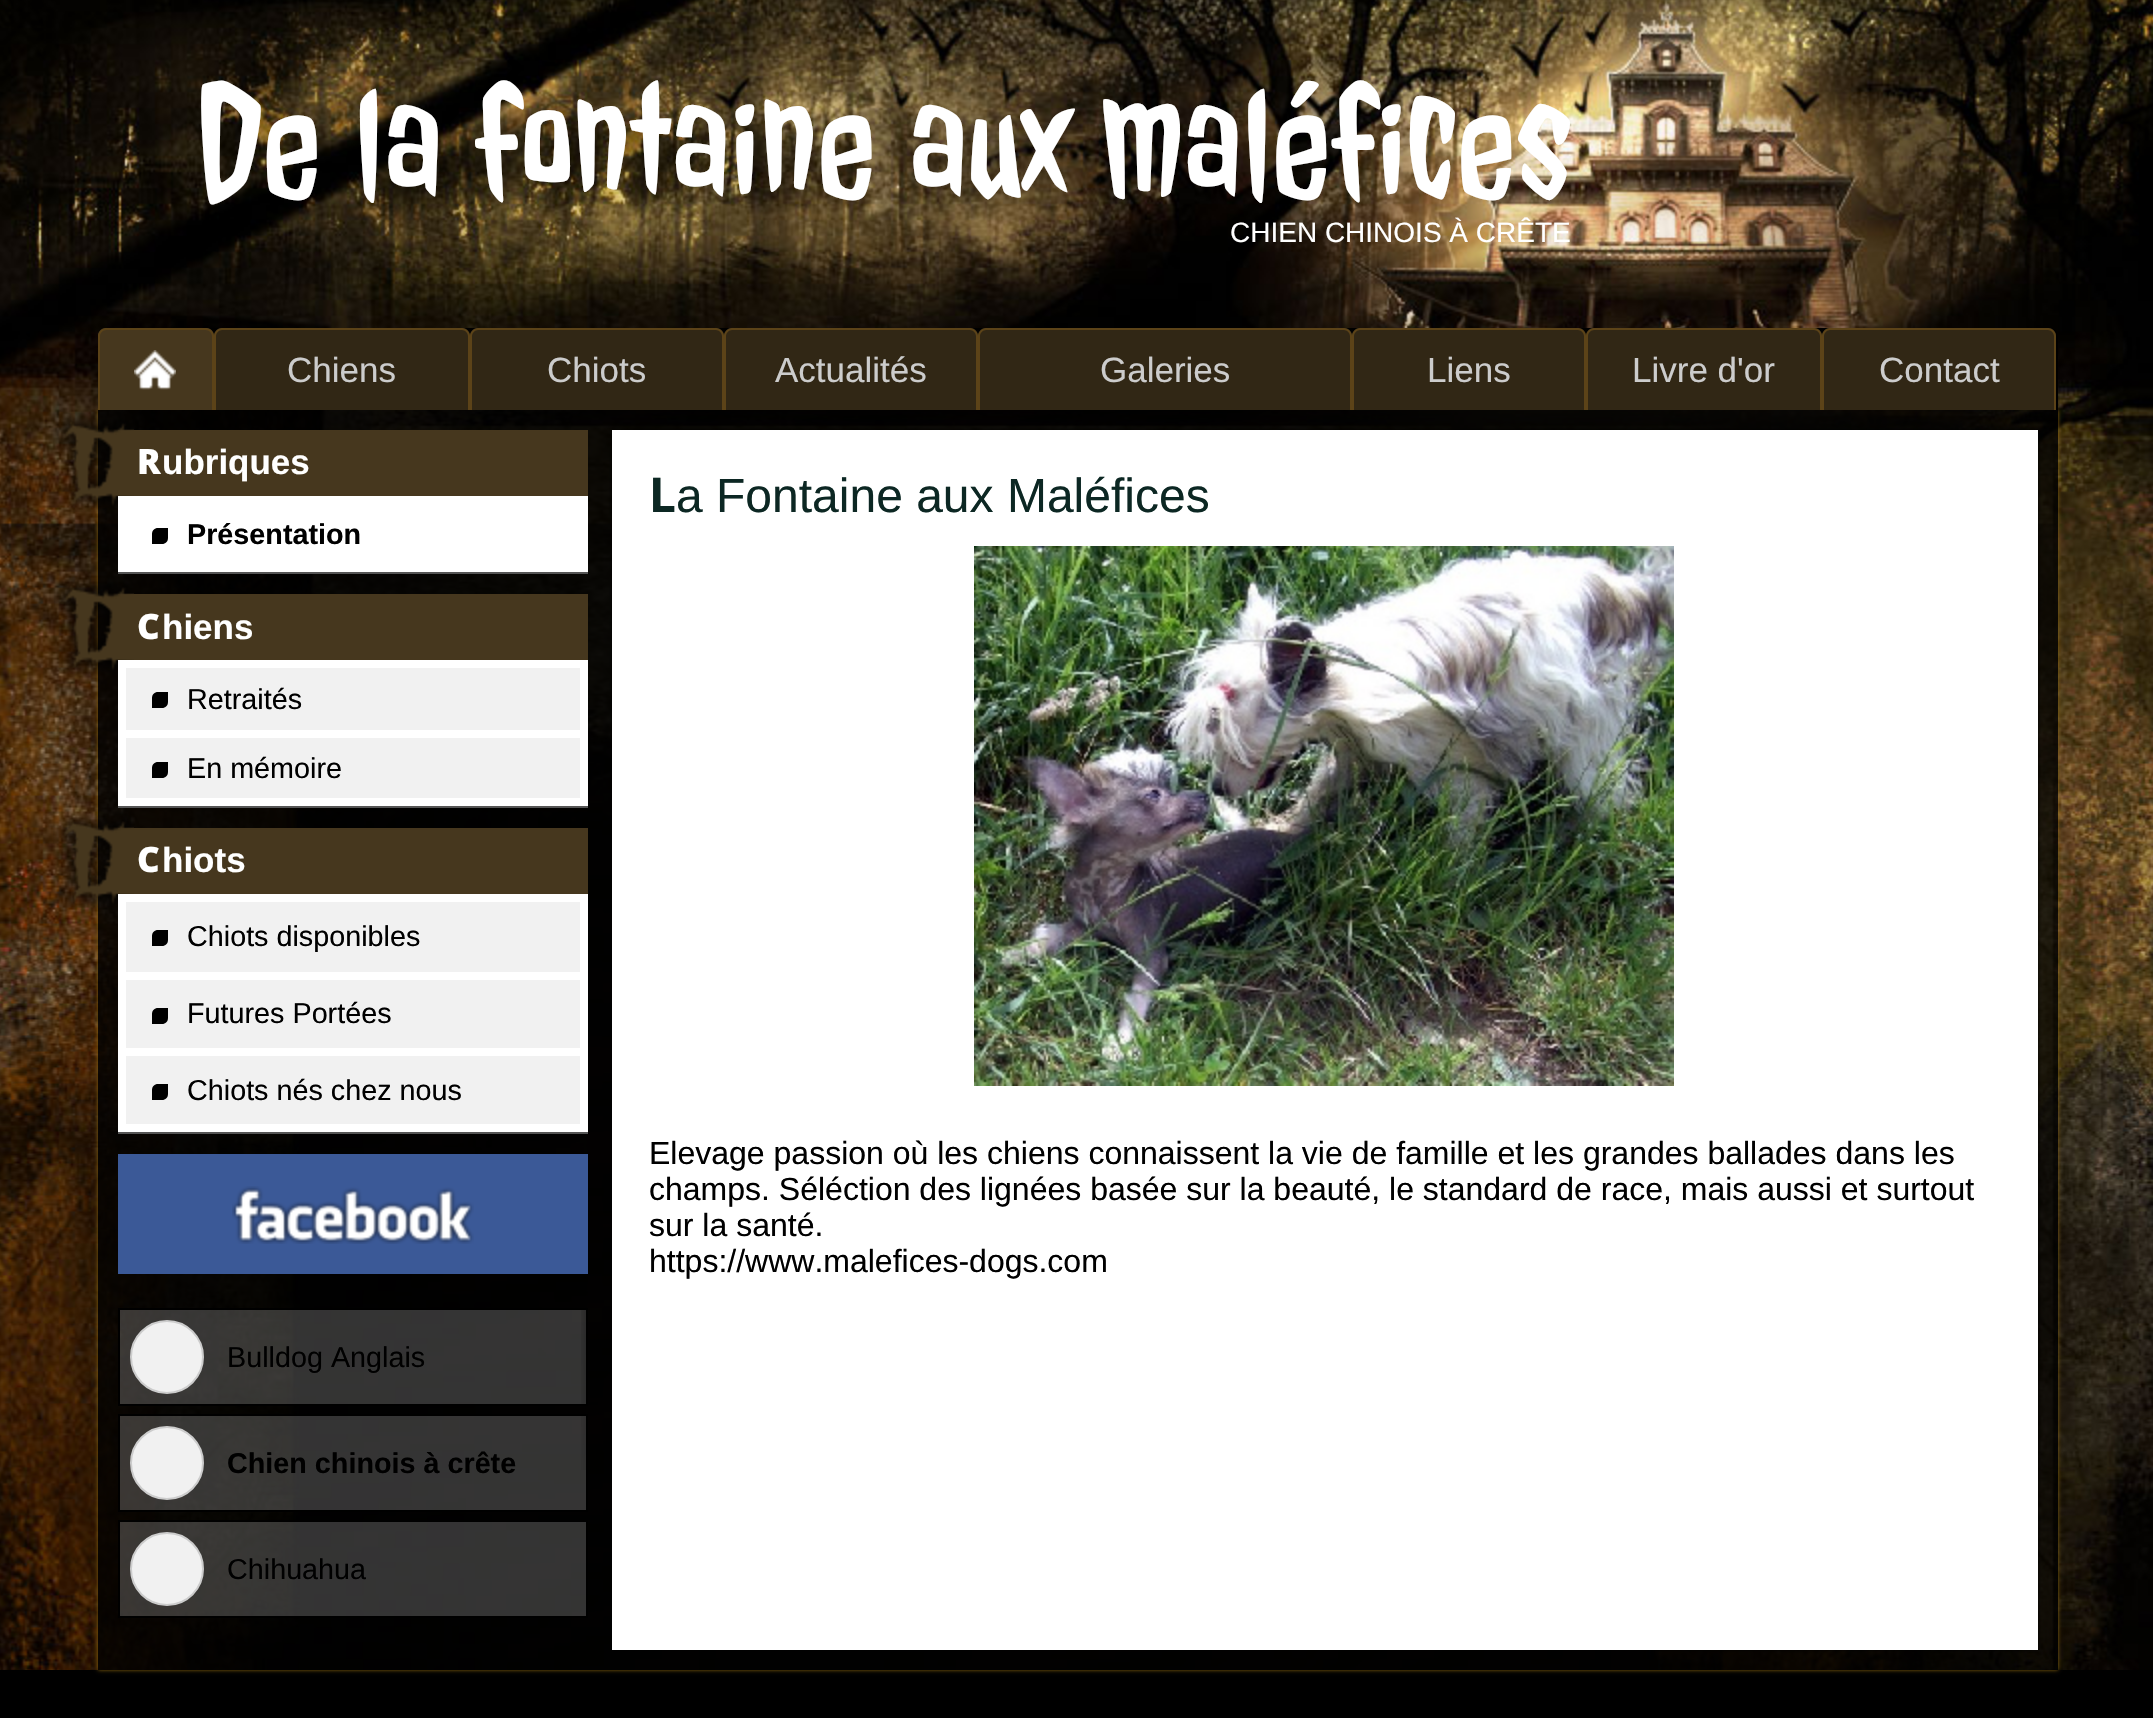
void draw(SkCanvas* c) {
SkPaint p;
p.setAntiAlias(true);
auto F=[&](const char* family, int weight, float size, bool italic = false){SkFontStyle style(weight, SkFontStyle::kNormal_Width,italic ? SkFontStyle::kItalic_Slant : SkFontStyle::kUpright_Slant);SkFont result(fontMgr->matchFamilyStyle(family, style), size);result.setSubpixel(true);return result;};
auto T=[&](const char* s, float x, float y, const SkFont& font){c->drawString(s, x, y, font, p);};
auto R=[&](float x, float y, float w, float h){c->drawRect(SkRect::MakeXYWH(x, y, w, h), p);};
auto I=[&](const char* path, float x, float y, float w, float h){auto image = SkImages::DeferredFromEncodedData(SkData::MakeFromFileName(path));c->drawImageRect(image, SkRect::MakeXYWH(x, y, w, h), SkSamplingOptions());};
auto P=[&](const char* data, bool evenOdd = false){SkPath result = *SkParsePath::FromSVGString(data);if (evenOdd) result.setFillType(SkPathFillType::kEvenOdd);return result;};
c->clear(0xff000000);
I("1.png",0,0,2153,1670);
auto f1 = F("Jolly Lodger",400,170);
p.setColor(0xffffffff);
T("De la fontaine aux maléfices",197,204,f1);
auto f2 = F("Liberation Sans",400,28);
T("CHIEN CHINOIS À CRÊTE",1230,242,f2);
c->save();
c->clipPath(P("M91 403h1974v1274h-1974zm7 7h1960v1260h-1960z",true),true);
p.setColor(0xff8a650e);
p.setMaskFilter(SkMaskFilter::MakeBlur(kNormal_SkBlurStyle, 2));
c->drawRect(SkRect::MakeXYWH(98,410,1960,1260),p);
p.setMaskFilter(nullptr);
c->restore();
p.setColor(0xff000000);
c->drawPath(P("M106 328h1944c4.5 0 8 3.5 8 8v74h-1960v-74c0-4.5 3.5-8 8-8z"),p);
p.setColor(0xff46371e);
c->drawPath(P("M106 328h100c4.5 0 8 3.5 8 8v74h-116v-74c0-4.5 3.5-8 8-8z"),p);
p.setColor(0xff5c4318);
c->drawPath(P("M106 328h100c4 0 8 4 8 8v74h-116v-74c0-4 4-8 8-8zm0 2h100c3 0 6 3 6 6v74h-112v-74c0-3 3-6 6-6z",true),p);
I("2.png",134,350,42,40);
p.setColor(0xff312715);
c->drawPath(P("M222 328h240c4.5 0 8 3.5 8 8v74h-256v-74c0-4.5 3.5-8 8-8z"),p);
p.setColor(0xff5c4318);
c->drawPath(P("M222 328h240c4 0 8 4 8 8v74h-256v-74c0-4 4-8 8-8zm0 2h240c3 0 6 3 6 6v74h-252v-74c0-3 3-6 6-6z",true),p);
auto f3 = F("Liberation Sans",400,35);
p.setColor(0xffcccccc);
T("Chiens",287,382,f3);
p.setColor(0xff312715);
c->drawPath(P("M478 328h238c4.5 0 8 3.5 8 8v74h-254v-74c0-4.5 3.5-8 8-8z"),p);
p.setColor(0xff5c4318);
c->drawPath(P("M478 328h238c4 0 8 4 8 8v74h-254v-74c0-4 4-8 8-8zm0 2h238c3 0 6 3 6 6v74h-250v-74c0-3 3-6 6-6z",true),p);
p.setColor(0xffcccccc);
T("Chiots",547,382,f3);
p.setColor(0xff312715);
c->drawPath(P("M732 328h238c4.5 0 8 3.5 8 8v74h-254v-74c0-4.5 3.5-8 8-8z"),p);
p.setColor(0xff5c4318);
c->drawPath(P("M732 328h238c4 0 8 4 8 8v74h-254v-74c0-4 4-8 8-8zm0 2h238c3 0 6 3 6 6v74h-250v-74c0-3 3-6 6-6z",true),p);
p.setColor(0xffcccccc);
T("Actualités",775,382,f3);
p.setColor(0xff312715);
c->drawPath(P("M986 328h358c4.5 0 8 3.5 8 8v74h-374v-74c0-4.5 3.5-8 8-8z"),p);
p.setColor(0xff5c4318);
c->drawPath(P("M986 328h358c4 0 8 4 8 8v74h-374v-74c0-4 4-8 8-8zm0 2h358c3 0 6 3 6 6v74h-370v-74c0-3 3-6 6-6z",true),p);
p.setColor(0xffcccccc);
T("Galeries",1100,382,f3);
p.setColor(0xff312715);
c->drawPath(P("M1360 328h218c4.5 0 8 3.5 8 8v74h-234v-74c0-4.5 3.5-8 8-8z"),p);
p.setColor(0xff5c4318);
c->drawPath(P("M1360 328h218c4 0 8 4 8 8v74h-234v-74c0-4 4-8 8-8zm0 2h218c3 0 6 3 6 6v74h-230v-74c0-3 3-6 6-6z",true),p);
p.setColor(0xffcccccc);
T("Liens",1427,382,f3);
p.setColor(0xff312715);
c->drawPath(P("M1594 328h220c4.5 0 8 3.5 8 8v74h-236v-74c0-4.5 3.5-8 8-8z"),p);
p.setColor(0xff5c4318);
c->drawPath(P("M1594 328h220c4 0 8 4 8 8v74h-236v-74c0-4 4-8 8-8zm0 2h220c3 0 6 3 6 6v74h-232v-74c0-3 3-6 6-6z",true),p);
p.setColor(0xffcccccc);
T("Livre d'or",1632,382,f3);
p.setColor(0xff312715);
c->drawPath(P("M1830 328h218c4.5 0 8 3.5 8 8v74h-234v-74c0-4.5 3.5-8 8-8z"),p);
p.setColor(0xff5c4318);
c->drawPath(P("M1830 328h218c4 0 8 4 8 8v74h-234v-74c0-4 4-8 8-8zm0 2h218c3 0 6 3 6 6v74h-230v-74c0-3 3-6 6-6z",true),p);
p.setColor(0xffcccccc);
T("Contact",1879,382,f3);
p.setColor(0xcc000000);
R(98,410,1960,1260);
p.setColor(0xff46371e);
R(118,430,470,66);
I("3.png",53,413,81,99);
auto f4 = F("Noto Sans",900,35);
p.setColor(0xffffffff);
T("R",137,474,f4);
auto f5 = F("Liberation Sans",700,35);
T("ubriques",162,474,f5);
R(118,496,470,76);
p.setColor(0xff555555);
R(118,572,470,2);
p.setColor(0xff000000);
c->drawPath(P("M158 528h10v10c0 3.5-2.5 6-6 6h-10v-10c0-3.5 2.5-6 6-6z"),p);
auto f6 = F("Liberation Sans",700,28.75);
T("Présentation",187,544,f6);
p.setColor(0xff46371e);
R(118,594,470,66);
I("4.png",54,577,80,100);
p.setColor(0xffffffff);
T("C",137,639,f4);
T("hiens",162,639,f5);
R(118,660,470,146);
p.setColor(0xff555555);
R(118,806,470,2);
p.setColor(0xfff1f1f1);
R(126,668,454,62);
p.setColor(0xff000000);
c->drawPath(P("M158 692h10v10c0 3.5-2.5 6-6 6h-10v-10c0-3.5 2.5-6 6-6z"),p);
auto f7 = F("Liberation Sans",400,28.75);
T("Retraités",187,709,f7);
p.setColor(0xfff1f1f1);
R(126,738,454,60);
p.setColor(0xff000000);
c->drawPath(P("M158 762h10v10c0 3.5-2.5 6-6 6h-10v-10c0-3.5 2.5-6 6-6z"),p);
T("En mémoire",187,778,f7);
p.setColor(0xff46371e);
R(118,828,470,66);
I("5.png",53,809,81,103);
p.setColor(0xffffffff);
T("C",137,872,f4);
T("hiots",162,872,f5);
R(118,894,470,238);
p.setColor(0xff555555);
R(118,1132,470,2);
p.setColor(0xfff1f1f1);
R(126,902,454,70);
p.setColor(0xff000000);
c->drawPath(P("M158 930h10v10c0 3.5-2.5 6-6 6h-10v-10c0-3.5 2.5-6 6-6z"),p);
T("Chiots disponibles",187,946,f7);
p.setColor(0xfff1f1f1);
R(126,980,454,68);
p.setColor(0xff000000);
c->drawPath(P("M158 1008h10v10c0 3.5-2.5 6-6 6h-10v-10c0-3.5 2.5-6 6-6z"),p);
T("Futures Portées",187,1023,f7);
p.setColor(0xfff1f1f1);
R(126,1056,454,68);
p.setColor(0xff000000);
c->drawPath(P("M158 1084h10v10c0 3.5-2.5 6-6 6h-10v-10c0-3.5 2.5-6 6-6z"),p);
T("Chiots nés chez nous",187,1100,f7);
p.setColor(0xff3b5997);
R(118,1154,470,120);
I("6.png",232,1186,242,58);
p.setColor(0x33ffffff);
c->drawRect(SkRect::MakeXYWH(119,1309,468,96),p);
p.setStroke(true);
p.setStrokeWidth(2);
p.setColor(0xff000000);
c->drawRect(SkRect::MakeXYWH(119,1309,468,96),p);
p.setStroke(false);
p.setColor(0xfff1f1f1);
c->drawCircle(167,1357,36,p);
p.setStroke(true);
p.setColor(0xffcccccc);
c->drawCircle(167,1357,36,p);
p.setStroke(false);
p.setColor(0xff000000);
T("Bulldog Anglais",227,1367,f7);
p.setColor(0x33ffffff);
c->drawRect(SkRect::MakeXYWH(119,1415,468,96),p);
p.setStroke(true);
p.setColor(0xff000000);
c->drawRect(SkRect::MakeXYWH(119,1415,468,96),p);
I("7.png",581,1310,5,160);
p.setStroke(false);
p.setColor(0xfff1f1f1);
c->drawCircle(167,1463,36,p);
p.setStroke(true);
p.setColor(0xffcccccc);
c->drawCircle(167,1463,36,p);
p.setStroke(false);
p.setColor(0xff000000);
T("Chien chinois à crête",227,1473,f6);
p.setColor(0x33ffffff);
c->drawRect(SkRect::MakeXYWH(119,1521,468,96),p);
p.setStroke(true);
p.setColor(0xff000000);
c->drawRect(SkRect::MakeXYWH(119,1521,468,96),p);
p.setStroke(false);
p.setColor(0xfff1f1f1);
c->drawCircle(167,1569,36,p);
p.setStroke(true);
p.setColor(0xffcccccc);
c->drawCircle(167,1569,36,p);
p.setStroke(false);
p.setColor(0xff000000);
T("Chihuahua",227,1579,f7);
p.setMaskFilter(SkMaskFilter::MakeBlur(kNormal_SkBlurStyle, 2));
c->drawRect(SkRect::MakeXYWH(612,430,1426,1220),p);
p.setMaskFilter(nullptr);
p.setColor(0xffffffff);
R(612,430,1426,1220);
auto f8 = F("Noto Sans",700,48);
p.setColor(0xff0c2723);
T("L",649,512,f8);
auto f9 = F("Liberation Sans",400,48);
T("a Fontaine aux Maléfices",676,512,f9);
I("8.png",974,546,700,540);
auto f10 = F("Liberation Sans",400,32);
p.setColor(0xff000000);
T("Elevage passion où les chiens connaissent la vie de famille et les grandes ballades dans les",649,1164,f10);
T("champs. Séléction des lignées basée sur la beauté, le standard de race, mais aussi et surtout",649,1200,f10);
T("sur la santé.",649,1236,f10);
T("https://www.malefices-dogs.com",649,1272,f10);
}
